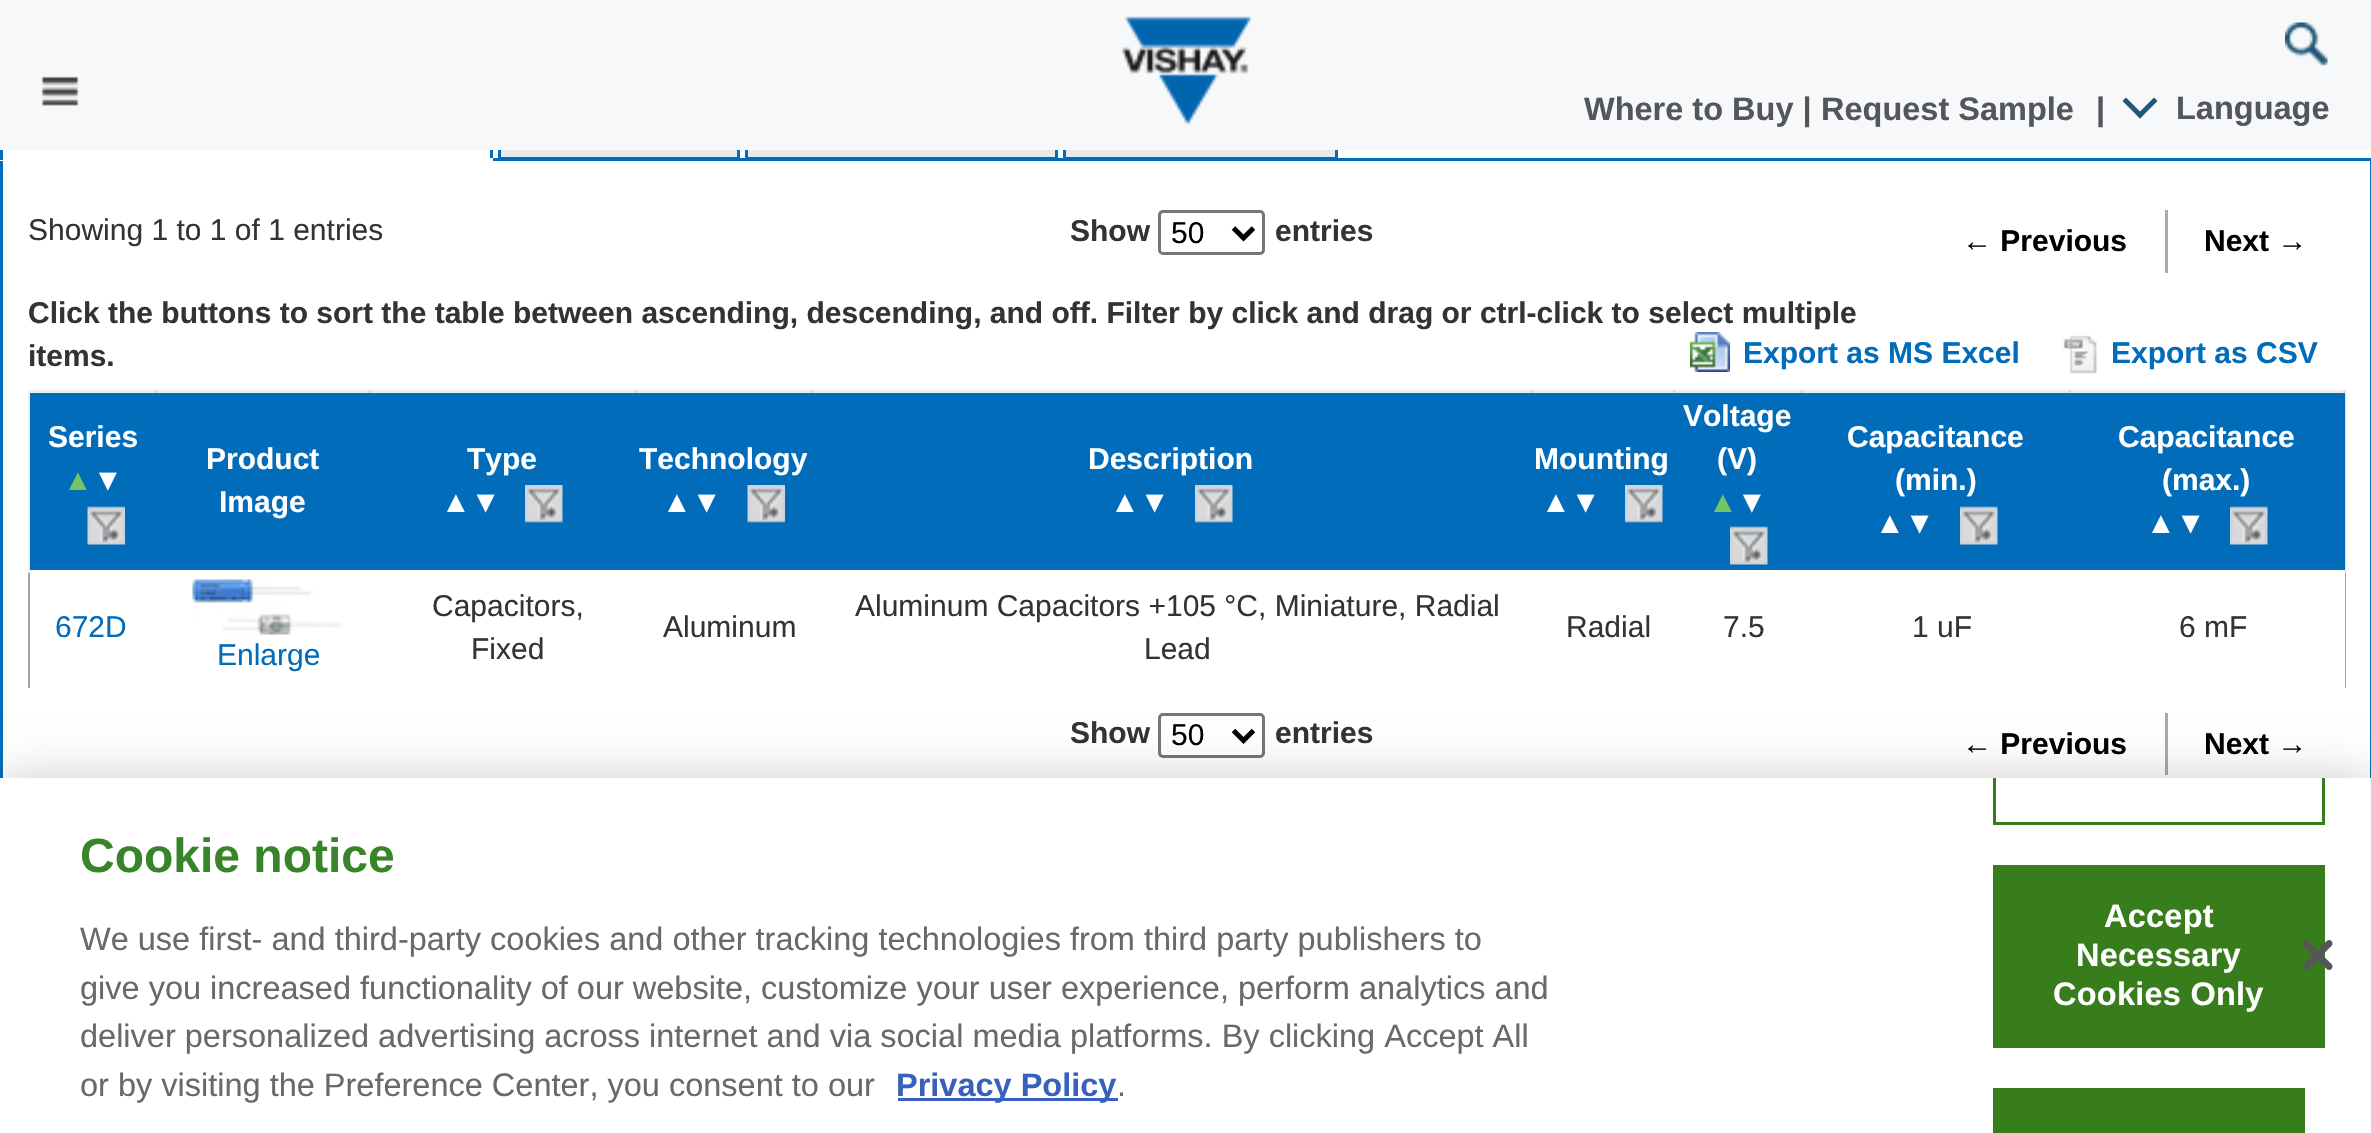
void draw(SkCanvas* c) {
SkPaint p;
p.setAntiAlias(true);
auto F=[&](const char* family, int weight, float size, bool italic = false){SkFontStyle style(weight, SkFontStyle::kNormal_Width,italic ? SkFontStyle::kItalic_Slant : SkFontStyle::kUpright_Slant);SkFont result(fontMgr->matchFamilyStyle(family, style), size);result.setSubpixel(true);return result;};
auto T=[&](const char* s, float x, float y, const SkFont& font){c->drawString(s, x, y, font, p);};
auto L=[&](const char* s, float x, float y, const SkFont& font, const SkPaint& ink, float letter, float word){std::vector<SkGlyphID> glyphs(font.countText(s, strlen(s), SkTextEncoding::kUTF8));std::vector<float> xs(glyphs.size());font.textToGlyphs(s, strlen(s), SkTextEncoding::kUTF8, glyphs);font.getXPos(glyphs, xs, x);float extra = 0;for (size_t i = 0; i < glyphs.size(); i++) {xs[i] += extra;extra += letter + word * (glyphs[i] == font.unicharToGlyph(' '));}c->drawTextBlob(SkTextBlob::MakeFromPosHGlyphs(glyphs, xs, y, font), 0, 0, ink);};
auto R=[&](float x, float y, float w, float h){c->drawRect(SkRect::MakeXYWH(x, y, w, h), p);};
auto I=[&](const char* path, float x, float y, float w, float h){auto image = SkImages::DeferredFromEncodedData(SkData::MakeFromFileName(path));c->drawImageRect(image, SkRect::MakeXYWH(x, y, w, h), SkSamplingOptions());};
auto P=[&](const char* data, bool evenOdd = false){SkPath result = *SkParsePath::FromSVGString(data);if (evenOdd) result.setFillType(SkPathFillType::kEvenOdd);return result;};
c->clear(0xffffffff);
p.setColor(0xffeaeaea);
R(501,150,236,7);
p.setStroke(true);
p.setStrokeWidth(3);
p.setColor(0xff016cba);
c->drawRect(SkRect::MakeXYWH(1.5,159.5,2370,649),p);
c->drawRect(SkRect::MakeXYWH(499.5,86.5,239,72),p);
p.setStroke(false);
p.setColor(0xffeaeaea);
R(748,150,307,7);
p.setStroke(true);
p.setColor(0xff016cba);
c->drawRect(SkRect::MakeXYWH(746.5,86.5,310,72),p);
p.setStroke(false);
p.setColor(0xffeaeaea);
R(1066,150,269,7);
p.setStroke(true);
p.setColor(0xff016cba);
c->drawRect(SkRect::MakeXYWH(1064.5,86.5,272,72),p);
p.setStroke(false);
p.setColor(0xfff6f8f9);
R(0,0,2371,150);
I("1.png",1121,16,130,110);
I("2.png",2285,22,43,44);
I("3.png",41,76,38,30);
auto f1 = F("Liberation Sans",700,32.5);
p.setColor(0xff53565a);
T("Where to Buy |",1584,120,f1);
T("Request Sample",1821,120,f1);
T("|",2096,120,f1);
p.setColor(0xff225678);
c->drawPath(P("M2154 97.5l3.5 3.5l-17.5 17.5l-3.5-3.5z"),p);
c->drawPath(P("M2126 97.5l17.5 17.5l-3.5 3.5l-17.5-17.5z"),p);
p.setColor(0xff53565a);
T("Language",2176,119,f1);
p.setColor(0xff016cba);
R(490,150,3,10);
p.setColor(0xffffffff);
R(0,158,493,3);
p.setColor(0xff016cba);
R(0,150,3,10);
auto f2 = F("Liberation Sans",400,30);
p.setColor(0xff333333);
T("Showing 1 to 1 of 1 entries",28,240,f2);
auto f3 = F("Liberation Sans",700,30);
T("Show",1070,241,f3);
p.setStroke(true);
p.setColor(0xff767676);
c->drawRoundRect(SkRect::MakeXYWH(1159.5,211.5,104,42),3.5,3.5,p);
p.setStrokeWidth(5);
p.setColor(0xff000000);
c->drawPath(P("M1233.5 228l10 10l10-10"),p);
p.setStroke(false);
T("50",1171,243,f2);
p.setColor(0xff333333);
T("entries",1275,241,f3);
p.setColor(0xffaaaaaa);
R(2165,210,3,63);
p.setColor(0xff000000);
T("← Previous",1962,251,f3);
T("Next →",2204,251,f3);
p.setColor(0xff333333);
T("Click the buttons to sort the table between ascending, descending, and off. Filter by click and drag or ctrl-click to select multiple",28,323,f3);
T("items.",28,366,f3);
I("4.png",1690,332,40,40);
p.setColor(0xff006cba);
T("Export as MS Excel",1743,363,f3);
I("5.png",2063,335,34,39);
T("Export as CSV",2111,363,f3);
p.setColor(0xffeeeeee);
R(28,390,2317,3);
R(28,390,3,180);
p.setColor(0xffdddddd);
R(155,390,3,3);
p.setColor(0xffa2a2a2);
R(28,570,2,118);
p.setColor(0xffeeeeee);
R(28,570,2,3);
p.setColor(0xffa2a2a2);
R(2345,570,1,118);
p.setColor(0xffdddddd);
R(2343,390,3,183);
p.setColor(0xff006cba);
R(30,393,2315,177);
p.setColor(0xffffffff);
T("Series",48,447,f3);
p.setColor(0xff73c561);
T("▲",63,490,f3);
p.setColor(0xffffffff);
T("▼",93,490,f3);
I("6.png",87,506,38,39);
p.setColor(0xffdddddd);
R(368,390,3,3);
p.setColor(0xffffffff);
T("Product",206,469,f3);
T("Image",219,512,f3);
p.setColor(0xffdddddd);
R(635,390,3,3);
p.setColor(0xffffffff);
T("Type",467,469,f3);
T("▲▼",441,512,f3);
I("7.png",525,485,38,38);
p.setColor(0xffdddddd);
R(810,390,3,3);
p.setColor(0xffffffff);
T("Technology",639,469,f3);
T("▲▼",662,512,f3);
I("8.png",747,485,38,38);
p.setColor(0xffdddddd);
R(1530,390,3,3);
p.setColor(0xffffffff);
T("Description",1088,469,f3);
T("▲▼",1110,512,f3);
I("9.png",1195,485,38,38);
p.setColor(0xffdddddd);
R(1673,390,3,3);
p.setColor(0xffffffff);
T("Mounting",1534,469,f3);
T("▲▼",1541,512,f3);
I("9.png",1625,485,38,38);
p.setColor(0xffdddddd);
R(1800,390,3,3);
p.setColor(0xffffffff);
T("Voltage",1683,426,f3);
T("(V)",1717,469,f3);
p.setColor(0xff73c561);
T("▲",1708,512,f3);
p.setColor(0xffffffff);
T("▼",1737,512,f3);
I("10.png",1730,526,38,39);
p.setColor(0xffdddddd);
R(2068,390,3,3);
p.setColor(0xffffffff);
T("Capacitance",1847,447,f3);
T("(min.)",1895,490,f3);
T("▲▼",1875,533,f3);
I("11.png",1960,506,38,39);
T("Capacitance",2118,447,f3);
T("(max.)",2162,490,f3);
T("▲▼",2146,533,f3);
I("10.png",2230,506,38,39);
p.setColor(0xff006cba);
T("672D",55,637,f2);
p.setColor(0xff333333);
T("Capacitors,",432,616,f2);
T("Fixed",471,659,f2);
T("Aluminum",663,637,f2);
T("Aluminum Capacitors +105 °C, Miniature, Radial",855,616,f2);
T("Lead",1144,659,f2);
T("Radial",1566,637,f2);
T("7.5",1723,637,f2);
T("1 uF",1912,637,f2);
p.setColor(0xffffffff);
R(2343,570,2,3);
p.setColor(0xff333333);
T("6 mF",2179,637,f2);
I("12.png",192,579,151,56);
p.setColor(0xff006cba);
T("Enlarge",217,665,f2);
p.setColor(0xff333333);
T("Show",1070,743,f3);
p.setStroke(true);
p.setStrokeWidth(3);
p.setColor(0xff767676);
c->drawRoundRect(SkRect::MakeXYWH(1159.5,714.5,104,42),3.5,3.5,p);
p.setStrokeWidth(5);
p.setColor(0xff000000);
c->drawPath(P("M1233.5 730.5l10 10l10-10"),p);
p.setStroke(false);
T("50",1171,745,f2);
p.setColor(0xff333333);
T("entries",1275,743,f3);
p.setColor(0xffaaaaaa);
R(2165,713,3,62);
p.setColor(0xff000000);
T("← Previous",1962,754,f3);
T("Next →",2204,754,f3);
p.setColor(0x33000000);
p.setMaskFilter(SkMaskFilter::MakeBlur(kNormal_SkBlurStyle, 22.5));
c->drawRect(SkRect::MakeXYWH(0,778,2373,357),p);
p.setMaskFilter(nullptr);
p.setColor(0xffffffff);
R(0,778,2371,355);
auto f4 = F("Liberation Sans",700,48);
p.setColor(0xff378528);
T("Cookie notice",80,872,f4);
auto f5 = F("Liberation Sans",400,32.5);
p.setColor(0xff696969);
T("We use first- and third-party cookies and other tracking technologies from third party publishers to",80,950,f5);
T("give you increased functionality of our website, customize your user experience, perform analytics and",80,999,f5);
T("deliver personalized advertising across internet and via social media platforms. By clicking Accept All",80,1047,f5);
T("or by visiting the Preference Center, you consent to our",80,1096,f5);
p.setColor(0xff3860be);
R(898,1098,220,3);
T("Privacy Policy",896,1096,f1);
p.setColor(0xff696969);
T(".",1117,1096,f5);
c->save();
c->clipRect(SkRect::MakeXYWH(0,778,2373,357));
p.setStroke(true);
p.setStrokeWidth(3);
p.setColor(0xff387d1c);
c->drawRect(SkRect::MakeXYWH(1994.5,681.5,329,142),p);
c->restore();
p.setStroke(false);
R(1993,865,332,183);
p.setColor(0xffffffff);
L("Accept",2104,927,f1,p,.25,0);
L("Necessary",2076,966,f1,p,.25,0);
L("Cookies Only",2053,1005,f1,p,.25,0);
p.setColor(0xff387d1c);
R(1993,1088,312,45);
I("13.png",2303,940,30,30);
}
